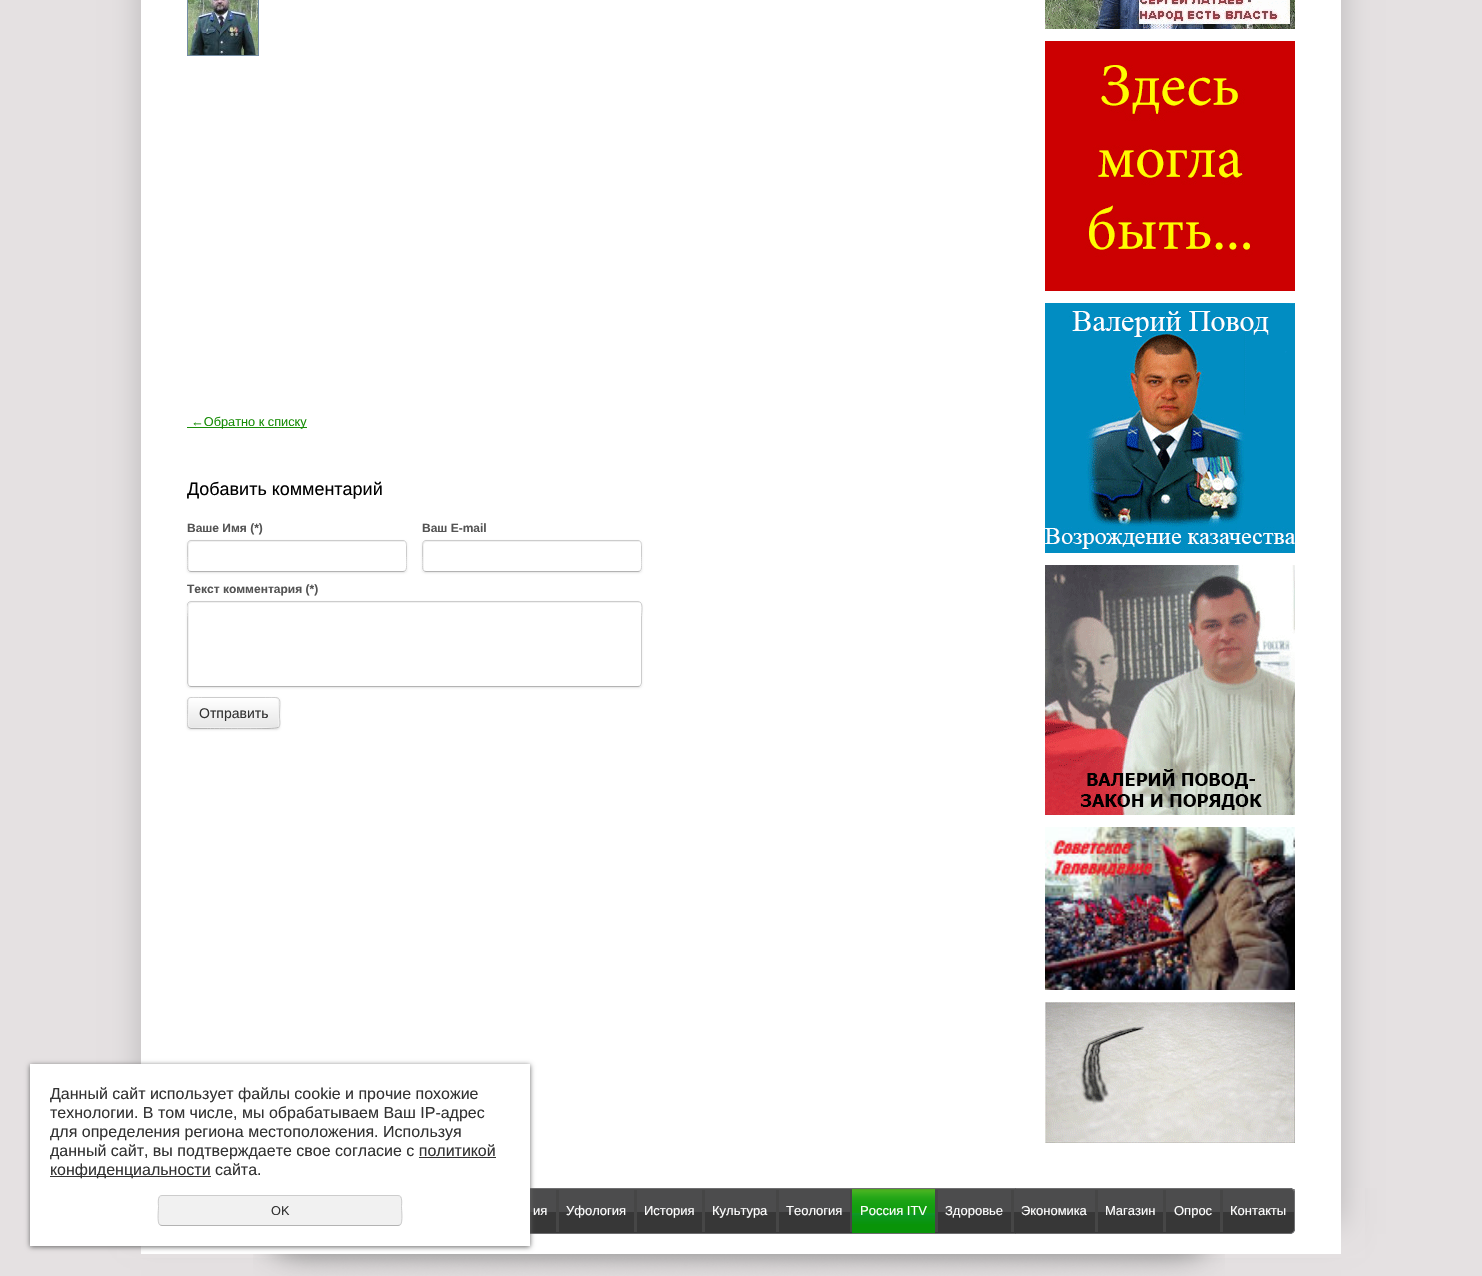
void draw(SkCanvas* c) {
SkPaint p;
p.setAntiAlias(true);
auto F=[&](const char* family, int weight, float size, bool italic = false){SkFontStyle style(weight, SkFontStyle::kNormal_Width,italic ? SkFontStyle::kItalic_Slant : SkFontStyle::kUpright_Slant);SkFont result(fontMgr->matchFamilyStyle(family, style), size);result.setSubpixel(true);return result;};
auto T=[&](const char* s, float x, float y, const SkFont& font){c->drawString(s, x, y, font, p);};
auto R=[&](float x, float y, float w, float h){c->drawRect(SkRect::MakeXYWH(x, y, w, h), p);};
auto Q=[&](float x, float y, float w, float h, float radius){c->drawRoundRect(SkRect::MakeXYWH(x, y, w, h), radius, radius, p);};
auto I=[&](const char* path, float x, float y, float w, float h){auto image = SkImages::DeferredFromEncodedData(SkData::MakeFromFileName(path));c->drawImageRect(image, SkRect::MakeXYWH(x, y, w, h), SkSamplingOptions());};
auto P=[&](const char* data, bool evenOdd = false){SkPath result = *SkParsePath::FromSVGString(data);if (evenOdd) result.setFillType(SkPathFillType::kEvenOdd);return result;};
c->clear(0xffe5e1e2);
p.setColor(0xffb8b6b7);
p.setMaskFilter(SkMaskFilter::MakeBlur(kNormal_SkBlurStyle, 15));
c->drawRect(SkRect::MakeXYWH(141,-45,1200,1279),p);
p.setMaskFilter(nullptr);
p.setColor(0xffffffff);
R(141,0,1200,1188);
p.setStroke(true);
p.setStrokeWidth(1);
p.setColor(0xff748da5);
c->drawRect(SkRect::MakeXYWH(187.5,-.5,71,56),p);
I("1.png",188,0,70,55);
p.setStroke(false);
p.setColor(0xff188d07);
R(187,427,120,1);
auto f1 = F("Liberation Sans",400,12.75);
T("←Обратно к списку",191,426,f1);
auto f2 = F("Liberation Sans",400,18);
p.setColor(0xff000000);
T("Добавить комментарий",187,495,f2);
auto f3 = F("Liberation Sans",700,12);
p.setColor(0xff545454);
T("Ваше Имя (*)",187,532,f3);
p.setColor(0x1a000000);
p.setMaskFilter(SkMaskFilter::MakeBlur(kNormal_SkBlurStyle, 1));
c->drawRoundRect(SkRect::MakeXYWH(187,541,220,32),4,4,p);
p.setMaskFilter(nullptr);
p.setColor(0xffffffff);
Q(187,540,220,32,4);
p.setColor(0xfff1f1f1);
c->drawPath(P("M192 542h213l-2-1h-213c-3 1-2 5-2 7v8c0 3-1 13 1 14v-21c0-3-1-7 3-7z"),p);
p.setStroke(true);
p.setColor(0xffb3b3b3);
c->drawPath(P("M405.5 570.5c-.5 .5-1.5 1-2.5 1h-212c-1 0-2-.5-2.5-1"),p);
c->save();
c->clipRect(SkRect::MakeXYWH(187,521,220,51));
p.setColor(0xffcccccc);
c->drawPath(P("M188.5 570.5c-2-2.5-1-11.5-1-14.5v-8c0-2.5-.5-7.5 3.5-7.5h212c4 0 3.5 5 3.5 7.5v8c0 3 1 12-1 14.5"),p);
c->restore();
p.setStroke(false);
p.setColor(0xff545454);
T("Ваш E-mail",422,532,f3);
p.setColor(0x1a000000);
p.setMaskFilter(SkMaskFilter::MakeBlur(kNormal_SkBlurStyle, 1));
c->drawRoundRect(SkRect::MakeXYWH(422,541,220,32),4,4,p);
p.setMaskFilter(nullptr);
p.setColor(0xffffffff);
Q(422,540,220,32,4);
p.setColor(0xfff1f1f1);
c->drawPath(P("M427 542h213l-2-1h-213c-3 1-2 5-2 7v8c0 3-1 13 1 14v-21c0-3-1-7 3-7z"),p);
p.setStroke(true);
p.setColor(0xffb3b3b3);
c->drawPath(P("M640.5 570.5c-.5 .5-1.5 1-2.5 1h-212c-1 0-2-.5-2.5-1"),p);
c->save();
c->clipRect(SkRect::MakeXYWH(422,521,220,51));
p.setColor(0xffcccccc);
c->drawPath(P("M423.5 570.5c-2-2.5-1-11.5-1-14.5v-8c0-2.5-.5-7.5 3.5-7.5h212c4 0 3.5 5 3.5 7.5v8c0 3 1 12-1 14.5"),p);
c->restore();
p.setStroke(false);
p.setColor(0xff545454);
T("Текст комментария (*)",187,593,f3);
p.setColor(0x1a000000);
p.setMaskFilter(SkMaskFilter::MakeBlur(kNormal_SkBlurStyle, 1));
c->drawRoundRect(SkRect::MakeXYWH(187,602,455,86),4,4,p);
p.setMaskFilter(nullptr);
p.setColor(0xffffffff);
Q(187,601,455,86,4);
p.setColor(0xfff1f1f1);
c->drawPath(P("M192 603h448c0-1-1-1-2-1h-447c-2 0-3 1-3 3v78c0 1 0 2 1 2v-80c0-1 1-2 3-2z"),p);
p.setStroke(true);
p.setColor(0xffb3b3b3);
c->drawPath(P("M640.5 685.5c-.5 .5-1.5 1-2.5 1h-447c-1 0-2-.5-2.5-1"),p);
c->save();
c->clipRect(SkRect::MakeXYWH(187,582,835,105));
p.setColor(0xffcccccc);
c->drawPath(P("M188.5 685.5l-1-2.5v-65c0-6.5-2.5-16.5 3.5-16.5h447c6 0 3.5 10 3.5 16.5v65l-1 2.5"),p);
c->restore();
p.setStroke(false);
p.setColor(0x1a000000);
p.setMaskFilter(SkMaskFilter::MakeBlur(kNormal_SkBlurStyle, 1));
c->drawRoundRect(SkRect::MakeXYWH(187,698,93,32),4,4,p);
p.setMaskFilter(nullptr);
p.setColor(0xfff1f1f1);
Q(187,697,93,32,4);
I("2.png",187,698,93,30);
c->drawPath(P("M275 728c4.5 0 4-3 4-7v-16c0-4 .5-7-4-7c2 0 3 1 3 3v24c0 2-1 3-3 3z"),p);
c->drawPath(P("M189 699c-2 1-1 8-1 10v8c0 2-2 11 3 11h86l1-1h-72c-18 0-17 4-17-11z"),p);
c->save();
c->clipRect(SkRect::MakeXYWH(187,697,835,32));
p.setStroke(true);
p.setColor(0xffb3b3b3);
c->drawPath(P("M278.5 727.5h-.5c-2 2-64.5 1-73 1h-14l-2.5-1"),p);
p.setColor(0xffcccccc);
c->drawPath(P("M188.5 727.5c-2-2.5-1-11.5-1-14.5c0-18.5-2.5-15.5 17.5-15.5h57c22 0 17.5-2.5 17.5 19.5c0 3 1.5 8-1 10.5"),p);
c->restore();
auto f4 = F("Liberation Sans",400,14);
p.setStroke(false);
p.setColor(0xff333333);
T("Отправить",199,718,f4);
I("3.png",1045,0,250,29);
I("4.png",1045,41,250,250);
I("5.png",1045,303,250,250);
I("6.png",1045,565,250,250);
I("7.png",1045,827,250,163);
I("8.png",1045,1002,250,141);
p.setColor(0xffe5e1e2);
R(117,1188,1248,70);
I("10.png",253,1254,972,22);
c->save();
c->clipRect(SkRect::MakeXYWH(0,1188,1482,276));
p.setColor(0xffb8b6b7);
p.setMaskFilter(SkMaskFilter::MakeBlur(kNormal_SkBlurStyle, 15));
c->drawRect(SkRect::MakeXYWH(141,1158,1200,66),p);
p.setMaskFilter(nullptr);
c->restore();
p.setColor(0xffffffff);
R(141,1188,1200,66);
p.setColor(0xff373737);
Q(187,1188,1108,46,5);
p.setColor(0x995a5a5c);
R(530,1189,765,23);
p.setStroke(true);
p.setColor(0xff6e6e70);
c->drawRoundRect(SkRect::MakeXYWH(187.5,1188.5,1107,45),4.5,4.5,p);
p.setStroke(false);
p.setColor(0xff666666);
p.setMaskFilter(SkMaskFilter::MakeBlur(kNormal_SkBlurStyle, 2.5));
c->drawRect(SkRect::MakeXYWH(30,1065,500,182),p);
p.setMaskFilter(nullptr);
p.setColor(0xffffffff);
R(30,1064,500,182);
auto f5 = F("Liberation Sans",400,16);
p.setColor(0xff333333);
T("Данный сайт использует файлы cookie и прочие похожие",50,1099,f5);
T("технологии. В том числе, мы обрабатываем Ваш IP-адрес",50,1118,f5);
T("для определения региона местоположения. Используя",50,1137,f5);
T("данный сайт, вы подтверждаете свое согласие с политикой",50,1156,f5);
R(50,1176,161,1);
T("конфиденциальности сайта.",50,1175,f5);
R(419,1157,77,1);
p.setColor(0xfff1f1f1);
Q(158,1195,244,31,4);
p.setStroke(true);
p.setColor(0xffb3b3b3);
c->drawPath(P("M400.5 1224.5c-.5 .5-1.5 1-2.5 1h-236c-1 0-2-.5-2.5-1"),p);
p.setColor(0xffcccccc);
c->drawPath(P("M159.5 1224.5c-2.5-2.5-1-14.5-1-18c0-2.5-1.5-11 3.5-11h236c5 0 3.5 8.5 3.5 11c0 3.5 1.5 15.5-1 18"),p);
p.setStroke(false);
p.setColor(0xff333333);
T("OK",271,1215,f1);
auto f6 = F("Liberation Sans",400,13);
p.setColor(0xffffffff);
T("ия",533,1215,f6);
p.setColor(0xff464646);
R(556,1190,3,42);
p.setColor(0xffffffff);
T("Уфология",566,1215,f6);
p.setColor(0xff464646);
R(634,1190,3,42);
p.setColor(0xffffffff);
T("История",644,1215,f6);
p.setColor(0xff464646);
R(702,1190,3,42);
p.setColor(0xffffffff);
T("Культура",712,1215,f6);
p.setColor(0xff464646);
R(776,1190,3,42);
p.setColor(0xffffffff);
T("Теология",786,1215,f6);
p.setColor(0xff464646);
R(850,1190,2,42);
p.setColor(0xff099408);
R(852,1224,83,9);
I("9.png",852,1189,83,35);
p.setColor(0xffffffff);
T("Россия ITV",860,1215,f6);
p.setColor(0xff464646);
R(935,1190,3,42);
p.setColor(0xffffffff);
T("Здоровье",945,1215,f6);
p.setColor(0xff464646);
R(1011,1190,3,42);
p.setColor(0xffffffff);
T("Экономика",1021,1215,f6);
p.setColor(0xff464646);
R(1095,1190,3,42);
p.setColor(0xffffffff);
T("Магазин",1105,1215,f6);
p.setColor(0xff464646);
R(1163,1190,3,42);
p.setColor(0xffffffff);
T("Опрос",1174,1215,f6);
p.setColor(0xff464646);
R(1220,1190,3,42);
p.setColor(0xffffffff);
T("Контакты",1230,1215,f6);
}
